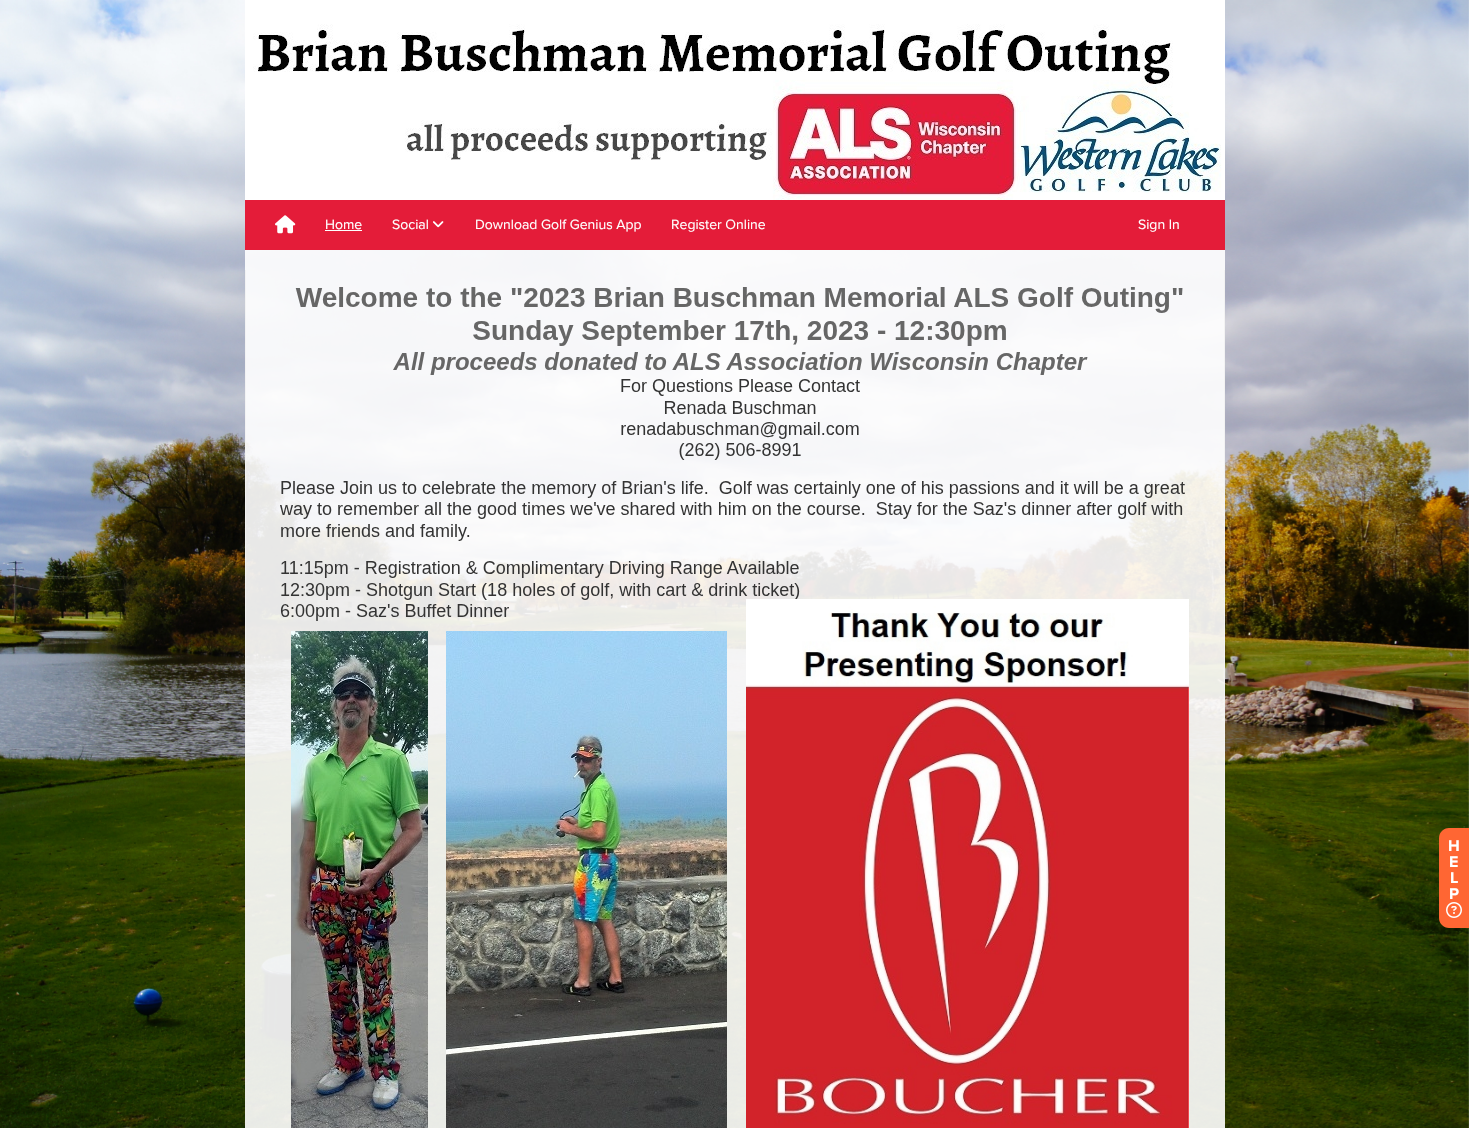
void draw(SkCanvas* c) {
SkPaint p;
p.setAntiAlias(true);
auto F=[&](const char* family, int weight, float size, bool italic = false){SkFontStyle style(weight, SkFontStyle::kNormal_Width,italic ? SkFontStyle::kItalic_Slant : SkFontStyle::kUpright_Slant);SkFont result(fontMgr->matchFamilyStyle(family, style), size);result.setSubpixel(true);return result;};
auto T=[&](const char* s, float x, float y, const SkFont& font){c->drawString(s, x, y, font, p);};
auto R=[&](float x, float y, float w, float h){c->drawRect(SkRect::MakeXYWH(x, y, w, h), p);};
auto I=[&](const char* path, float x, float y, float w, float h){auto image = SkImages::DeferredFromEncodedData(SkData::MakeFromFileName(path));c->drawImageRect(image, SkRect::MakeXYWH(x, y, w, h), SkSamplingOptions());};
auto P=[&](const char* data, bool evenOdd = false){SkPath result = *SkParsePath::FromSVGString(data);if (evenOdd) result.setFillType(SkPathFillType::kEvenOdd);return result;};
c->clear(0xffffffff);
I("1.png",0,0,1469,1128);
p.setColor(0xe6ffffff);
R(245,250,980,878);
I("2.png",245,0,980,200);
p.setColor(0xffe41c39);
R(245,200,980,50);
I("3.png",275,215,21,19);
auto f1 = F("Proxima Nova",400,14);
p.setColor(0xffffffff);
T("Home",325,229,f1);
R(325,230,37,1);
T("Social",392,229,f1);
I("4.png",433,221,11,7);
T("Download Golf Genius App",475,229,f1);
T("Register Online",671,229,f1);
T("Sign In",1138,229,f1);
p.setColor(0xe6f2f2f2);
R(1224,270,1,600);
R(245,270,1,600);
I("5.png",280,287,909,841);
p.setColor(0xffff6633);
c->drawPath(P("M1449 828h20v100h-20c-5.5 0-10-4.5-10-10v-80c0-5.5 4.5-10 10-10z"),p);
auto f2 = F("Proxima Nova",700,16);
p.setColor(0xffffffff);
T("H",1448,851,f2);
T("E",1449,867,f2);
T("L",1450,883,f2);
T("P",1449,899,f2);
I("6.png",1446,902,16,16);
}
